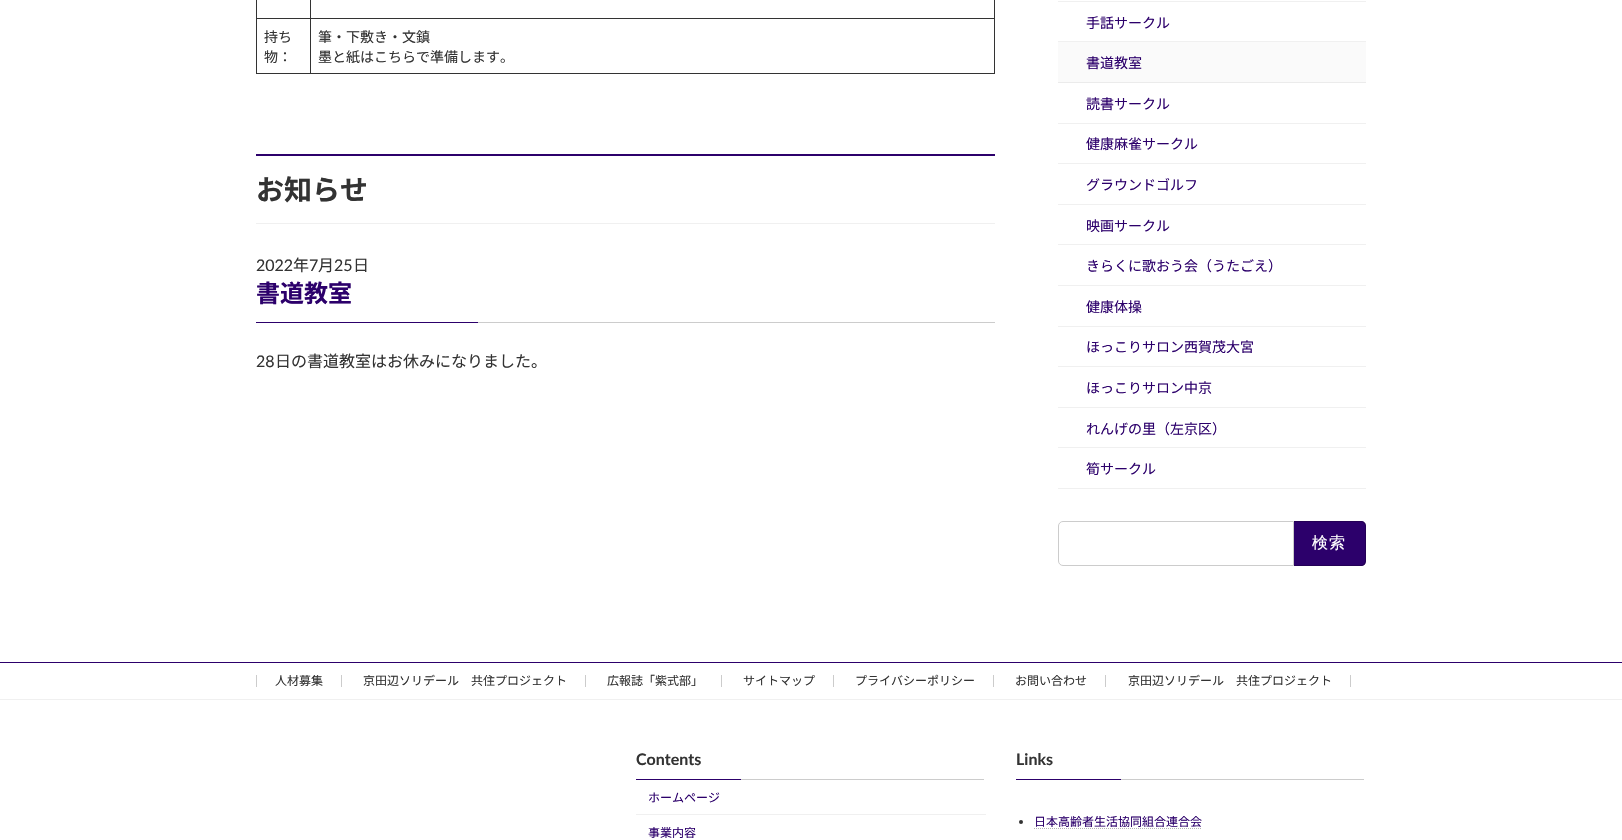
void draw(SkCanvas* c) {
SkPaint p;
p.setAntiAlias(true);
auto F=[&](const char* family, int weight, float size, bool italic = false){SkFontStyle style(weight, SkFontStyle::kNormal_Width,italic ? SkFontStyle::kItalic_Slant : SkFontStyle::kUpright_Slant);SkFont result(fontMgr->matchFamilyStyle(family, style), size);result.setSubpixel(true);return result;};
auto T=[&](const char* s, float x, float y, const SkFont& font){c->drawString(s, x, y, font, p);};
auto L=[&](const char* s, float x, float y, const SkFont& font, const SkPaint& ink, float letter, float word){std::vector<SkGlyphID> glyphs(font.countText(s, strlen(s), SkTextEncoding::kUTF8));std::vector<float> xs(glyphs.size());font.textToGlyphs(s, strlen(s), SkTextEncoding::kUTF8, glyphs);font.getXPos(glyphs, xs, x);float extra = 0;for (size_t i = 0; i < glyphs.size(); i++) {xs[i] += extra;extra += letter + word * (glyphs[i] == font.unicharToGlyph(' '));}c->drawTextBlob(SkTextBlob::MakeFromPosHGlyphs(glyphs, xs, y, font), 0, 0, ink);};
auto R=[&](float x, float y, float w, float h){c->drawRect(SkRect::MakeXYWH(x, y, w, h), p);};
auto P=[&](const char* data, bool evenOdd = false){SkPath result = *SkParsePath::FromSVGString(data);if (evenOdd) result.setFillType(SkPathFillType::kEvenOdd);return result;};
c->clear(0xffffffff);
p.setColor(0xff333333);
R(310,18,685,1);
R(994,0,1,74);
R(310,73,685,1);
R(310,18,1,56);
R(256,18,55,1);
R(310,0,1,19);
R(256,73,55,1);
R(256,0,1,74);
auto f1 = F("Noto Sans JP",400,14);
T("持ち",264,42,f1);
T("物：",264,62,f1);
T("筆・下敷き・文鎮",318,42,f1);
T("墨と紙はこちらで準備します。",318,62,f1);
p.setColor(0xff2c006b);
R(256,154,739,2);
p.setColor(0xfff0f0f0);
R(256,223,739,1);
auto f2 = F("Noto Sans JP",700,28);
p.setColor(0xff333333);
T("お知らせ",256,200,f2);
auto f3 = F("Lato",400,16);
T("2022",256,271,f3);
auto f4 = F("Noto Sans JP",400,16);
T("年",293,271,f4);
T("7",309,271,f3);
T("月",318,271,f4);
T("25",334,271,f3);
T("日",353,271,f4);
p.setColor(0xffcccccc);
R(478,322,517,1);
auto f5 = F("Noto Sans JP",700,24);
p.setColor(0xff2c006b);
T("書道教室",256,302,f5);
R(256,322,222,1);
p.setColor(0xff333333);
T("28",256,367,f3);
T("日の書道教室はお休みになりました。",275,367,f4);
p.setColor(0xfff0f0f0);
R(1058,1,308,1);
R(1058,41,308,1);
p.setColor(0xff2c006b);
T("手話サークル",1086,28,f1);
p.setColor(0xfffafafa);
R(1058,42,308,40);
p.setColor(0xffebebeb);
R(1058,82,308,1);
p.setColor(0xff2c006b);
T("書道教室",1086,68,f1);
p.setColor(0xfff0f0f0);
R(1058,123,308,1);
p.setColor(0xff2c006b);
T("読書サークル",1086,109,f1);
p.setColor(0xfff0f0f0);
R(1058,163,308,1);
p.setColor(0xff2c006b);
T("健康麻雀サークル",1086,149,f1);
p.setColor(0xfff0f0f0);
R(1058,204,308,1);
p.setColor(0xff2c006b);
T("グラウンドゴルフ",1086,190,f1);
p.setColor(0xfff0f0f0);
R(1058,244,308,1);
p.setColor(0xff2c006b);
T("映画サークル",1086,231,f1);
p.setColor(0xfff0f0f0);
R(1058,285,308,1);
p.setColor(0xff2c006b);
T("きらくに歌おう会（うたごえ）",1086,271,f1);
p.setColor(0xfff0f0f0);
R(1058,326,308,1);
p.setColor(0xff2c006b);
T("健康体操",1086,312,f1);
p.setColor(0xfff0f0f0);
R(1058,366,308,1);
p.setColor(0xff2c006b);
T("ほっこりサロン西賀茂大宮",1086,352,f1);
p.setColor(0xfff0f0f0);
R(1058,407,308,1);
p.setColor(0xff2c006b);
T("ほっこりサロン中京",1086,393,f1);
p.setColor(0xfff0f0f0);
R(1058,447,308,1);
p.setColor(0xff2c006b);
T("れんげの里（左京区）",1086,434,f1);
p.setColor(0xfff0f0f0);
R(1058,488,308,1);
p.setColor(0xff2c006b);
T("筍サークル",1086,474,f1);
p.setStroke(true);
p.setStrokeWidth(1);
p.setColor(0xffcccccc);
c->drawPath(P("M1063 521.5h230.5v44h-230.5c-2.5 0-4.5-2-4.5-4.5v-35c0-2.5 2-4.5 4.5-4.5z"),p);
p.setStroke(false);
p.setColor(0xff2c006b);
c->drawPath(P("M1294 521h67c3 0 5 2 5 5v35c0 3-2 5-5 5h-67z"),p);
p.setColor(0x33000000);
c->drawPath(P("M1294 521h67c3 0 5 2 5 5v35c0 3-2 5-5 5h-67zm0 1h67c2 0 4 2 4 4v35c0 2-2 4-4 4h-67z",true),p);
auto f6 = F("WenQuanYi Zen Hei",500,16);
p.setColor(0xffffffff);
L("検索",1312,548,f6,p,1,0);
p.setColor(0xff2c006b);
R(0,662,1622,1);
p.setColor(0xfff0f0f0);
R(0,699,1622,1);
p.setColor(0xffcccccc);
R(341,675,1,12);
R(256,675,1,12);
auto f7 = F("Noto Sans JP",400,12);
p.setColor(0xff333333);
T("人材募集",275,685,f7);
p.setColor(0xffcccccc);
R(585,675,1,12);
p.setColor(0xff333333);
T("京田辺ソリデール　共住プロジェクト",363,685,f7);
p.setColor(0xffcccccc);
R(721,675,1,12);
p.setColor(0xff333333);
T("広報誌「紫式部」",607,685,f7);
p.setColor(0xffcccccc);
R(833,675,1,12);
p.setColor(0xff333333);
T("サイトマップ",743,685,f7);
p.setColor(0xffcccccc);
R(993,675,1,12);
p.setColor(0xff333333);
T("プライバシーポリシー",855,685,f7);
p.setColor(0xffcccccc);
R(1105,675,1,12);
p.setColor(0xff333333);
T("お問い合わせ",1015,685,f7);
p.setColor(0xffcccccc);
R(1350,675,1,12);
p.setColor(0xff333333);
T("京田辺ソリデール　共住プロジェクト",1128,685,f7);
p.setColor(0xffcccccc);
R(741,779,243,1);
auto f8 = F("Lato",700,16);
p.setColor(0xff333333);
T("Contents",636,765,f8);
p.setColor(0xff2c006b);
R(636,779,105,1);
p.setColor(0xfff0f0f0);
R(636,814,350,1);
p.setColor(0xff2c006b);
T("ホームページ",648,802,f7);
T("事業内容",648,837,f7);
p.setColor(0xffcccccc);
R(1121,779,243,1);
p.setColor(0xff333333);
T("Links",1016,765,f8);
p.setColor(0xff2c006b);
R(1016,779,105,1);
p.setColor(0xff333333);
c->drawCircle(1021,822,2,p);
p.setColor(0xff2c006b);
T("日本高齢者生活協同組合連合会",1034,826,f7);
p.setStroke(true);
p.setColor(0xffb3b3b3);
p.setPathEffect(SkDashPathEffect::Make({{1,1}}, 0));
c->drawPath(P("M1034 828.5h168"),p);
p.setPathEffect(nullptr);
}
